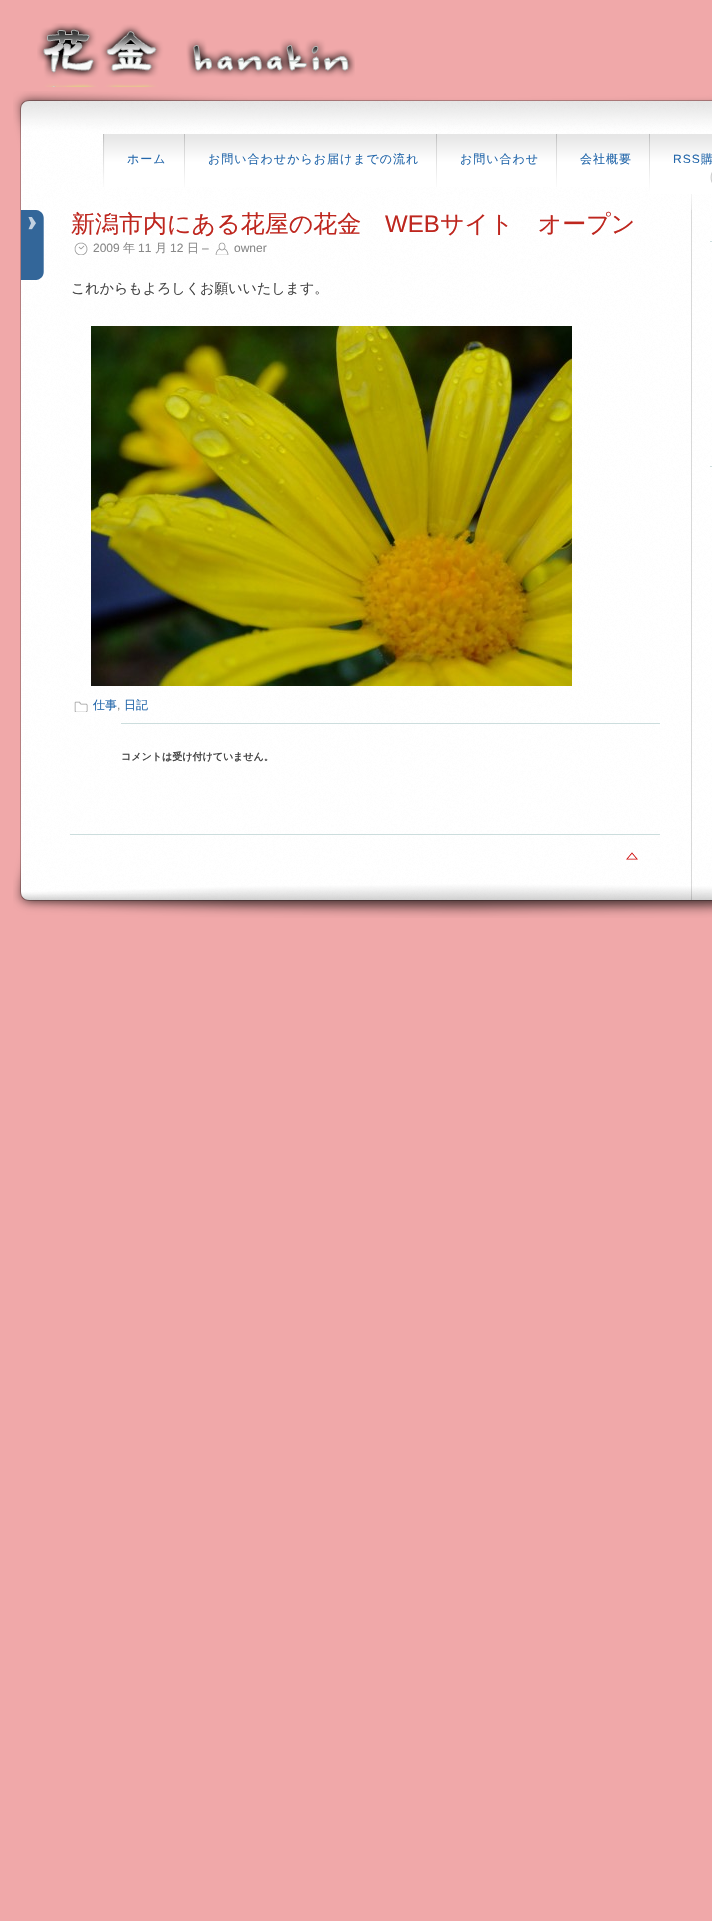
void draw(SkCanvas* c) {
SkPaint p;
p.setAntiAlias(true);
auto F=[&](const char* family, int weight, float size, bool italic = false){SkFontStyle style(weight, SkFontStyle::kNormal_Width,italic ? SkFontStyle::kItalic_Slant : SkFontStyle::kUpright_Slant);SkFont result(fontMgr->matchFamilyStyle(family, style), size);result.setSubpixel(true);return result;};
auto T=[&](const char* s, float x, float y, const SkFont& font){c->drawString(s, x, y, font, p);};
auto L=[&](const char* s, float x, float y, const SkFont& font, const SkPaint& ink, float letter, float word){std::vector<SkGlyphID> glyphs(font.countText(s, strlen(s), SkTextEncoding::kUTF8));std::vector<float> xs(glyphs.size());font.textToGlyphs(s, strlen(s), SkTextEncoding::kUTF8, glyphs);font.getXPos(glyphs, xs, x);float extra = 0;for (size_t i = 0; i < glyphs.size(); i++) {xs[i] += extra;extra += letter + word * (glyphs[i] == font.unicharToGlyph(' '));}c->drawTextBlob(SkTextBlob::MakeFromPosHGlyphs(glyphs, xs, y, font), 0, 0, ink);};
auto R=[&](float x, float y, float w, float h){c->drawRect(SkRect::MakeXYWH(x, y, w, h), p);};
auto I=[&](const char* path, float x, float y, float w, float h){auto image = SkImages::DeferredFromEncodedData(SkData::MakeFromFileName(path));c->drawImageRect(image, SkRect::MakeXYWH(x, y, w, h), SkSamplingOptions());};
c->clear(0xfff0a8a9);
I("1.png",13,91,699,119);
I("2.png",37,23,318,64);
I("3.png",103,134,81,53);
auto f1 = F("WenQuanYi Zen Hei",500,12);
p.setColor(0xff2266aa);
L("ホーム",127,163,f1,p,1,0);
I("4.png",184,134,252,53);
L("お問い合わせからお届けまでの流れ",208,163,f1,p,1,0);
I("5.png",436,134,120,53);
L("お問い合わせ",460,163,f1,p,1,0);
I("6.png",556,134,93,53);
L("会社概要",580,163,f1,p,1,0);
I("7.png",649,134,63,60);
auto f2 = F("Liberation Sans",400,12);
L("RSS",673,163,f2,p,1,0);
L("購",701,163,f1,p,1,0);
I("8.png",710,172,2,11);
I("9.png",20,210,692,614);
I("10.png",21,210,23,70);
auto f3 = F("WenQuanYi Zen Hei",500,24);
p.setColor(0xffbe261e);
T("新潟市内にある花屋の花金",71,232,f3);
auto f4 = F("Liberation Sans",400,24);
T("WEB",385,232,f4);
T("サイト　オープン",440,232,f3);
I("11.png",74,242,14,13);
p.setColor(0xff888888);
T("2009",93,252,f2);
T("年",123,252,f1);
T("11",138,252,f2);
T("月",155,252,f1);
T("12",170,252,f2);
T("日",187,252,f1);
T("–",202,252,f2);
I("12.png",215,242,14,13);
T("owner",234,252,f2);
auto f5 = F("WenQuanYi Zen Hei",500,14);
p.setColor(0xff444444);
T("これからもよろしくお願いいたします。",71,293,f5);
I("13.png",91,326,481,360);
I("14.png",74,701,14,11);
p.setColor(0xff2266aa);
T("仕事",93,709,f1);
p.setColor(0xff888888);
T(",",117,709,f2);
p.setColor(0xff2266aa);
T("日記",124,709,f1);
p.setColor(0xffccdddd);
R(121,723,539,1);
auto f6 = F("WenQuanYi Zen Hei",700,10);
p.setColor(0xff444444);
T("コメントは受け付けていません。",121,760,f6);
p.setColor(0xffccdddd);
R(710,241,2,1);
R(710,466,2,1);
I("15.png",13,824,699,94);
R(70,834,590,1);
I("16.png",626,852,12,8);
}
